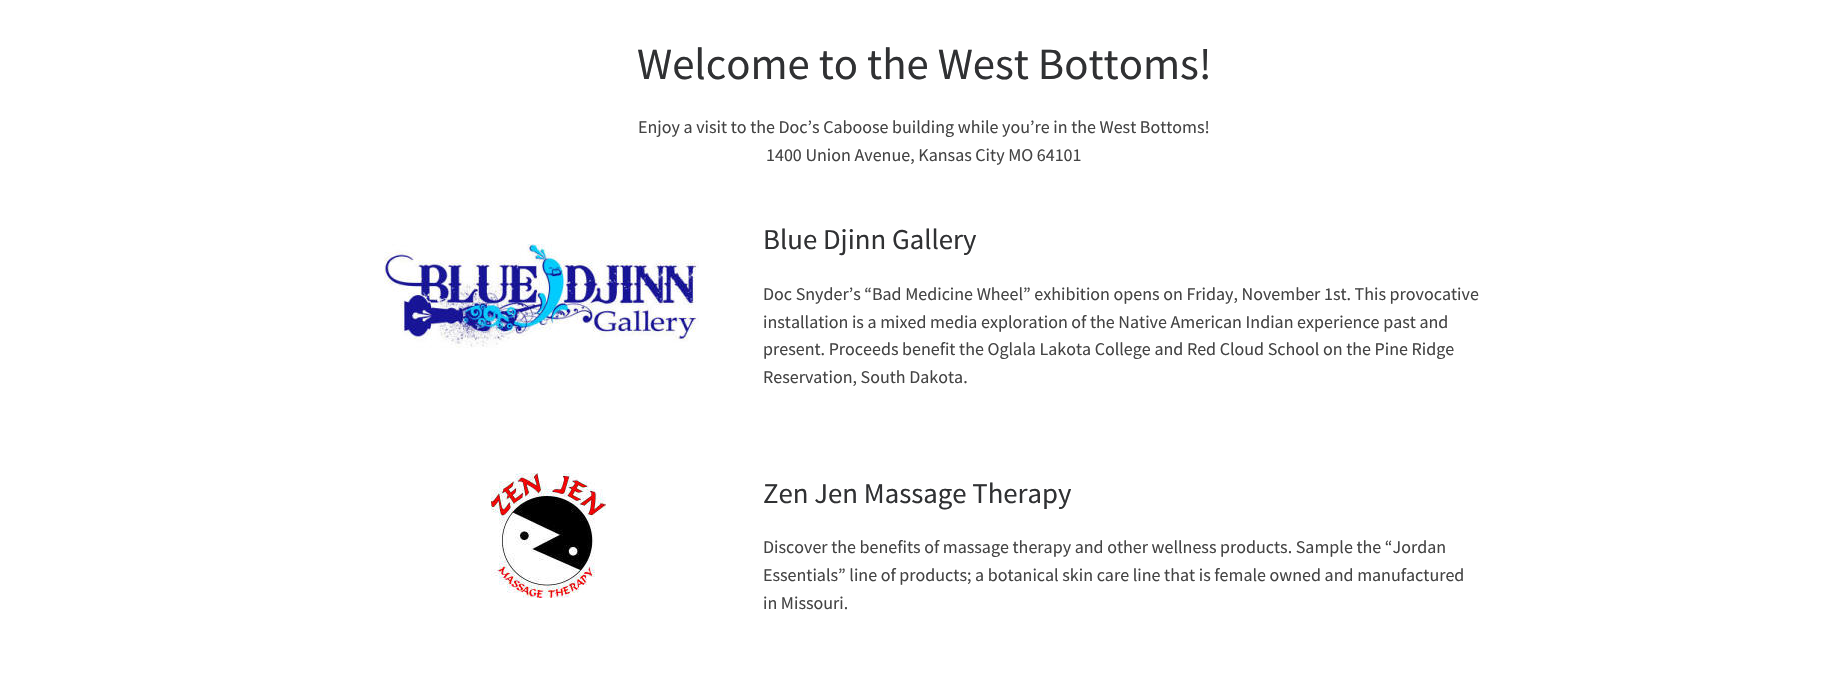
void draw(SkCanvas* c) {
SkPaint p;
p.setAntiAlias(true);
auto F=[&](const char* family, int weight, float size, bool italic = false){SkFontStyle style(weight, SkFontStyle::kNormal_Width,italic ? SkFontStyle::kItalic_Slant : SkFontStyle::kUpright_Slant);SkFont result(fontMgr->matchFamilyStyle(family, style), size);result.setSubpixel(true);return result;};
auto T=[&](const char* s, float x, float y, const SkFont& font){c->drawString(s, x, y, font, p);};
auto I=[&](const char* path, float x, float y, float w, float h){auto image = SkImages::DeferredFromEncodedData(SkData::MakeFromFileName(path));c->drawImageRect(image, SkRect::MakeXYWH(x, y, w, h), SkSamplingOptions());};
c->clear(0xffffffff);
auto f1 = F("Source Sans Pro",400,44.75);
p.setColor(0xff303133);
T("Welcome to the West Bottoms!",637,79,f1);
auto f2 = F("Source Sans Pro",400,18);
p.setColor(0xff444444);
T("Enjoy a visit to the Doc’s Caboose building while you’re in the West Bottoms!",638,133,f2);
T("1400 Union Avenue, Kansas City MO 64101",766,161,f2);
I("1.png",384,244,315,104);
auto f3 = F("Source Sans Pro",400,28.75);
p.setColor(0xff303133);
T("Blue Djinn Gallery",763,249,f3);
p.setColor(0xff444444);
T("Doc Snyder’s “Bad Medicine Wheel” exhibition opens on Friday, November 1st. This provocative",763,300,f2);
T("installation is a mixed media exploration of the Native American Indian experience past and",763,328,f2);
T("present. Proceeds benefit the Oglala Lakota College and Red Cloud School on the Pine Ridge",763,355,f2);
T("Reservation, South Dakota.",763,383,f2);
I("2.png",491,473,115,125);
p.setColor(0xff303133);
T("Zen Jen Massage Therapy",763,503,f3);
p.setColor(0xff444444);
T("Discover the benefits of massage therapy and other wellness products. Sample the “Jordan",763,553,f2);
T("Essentials” line of products; a botanical skin care line that is female owned and manufactured",763,581,f2);
T("in Missouri.",763,609,f2);
}
